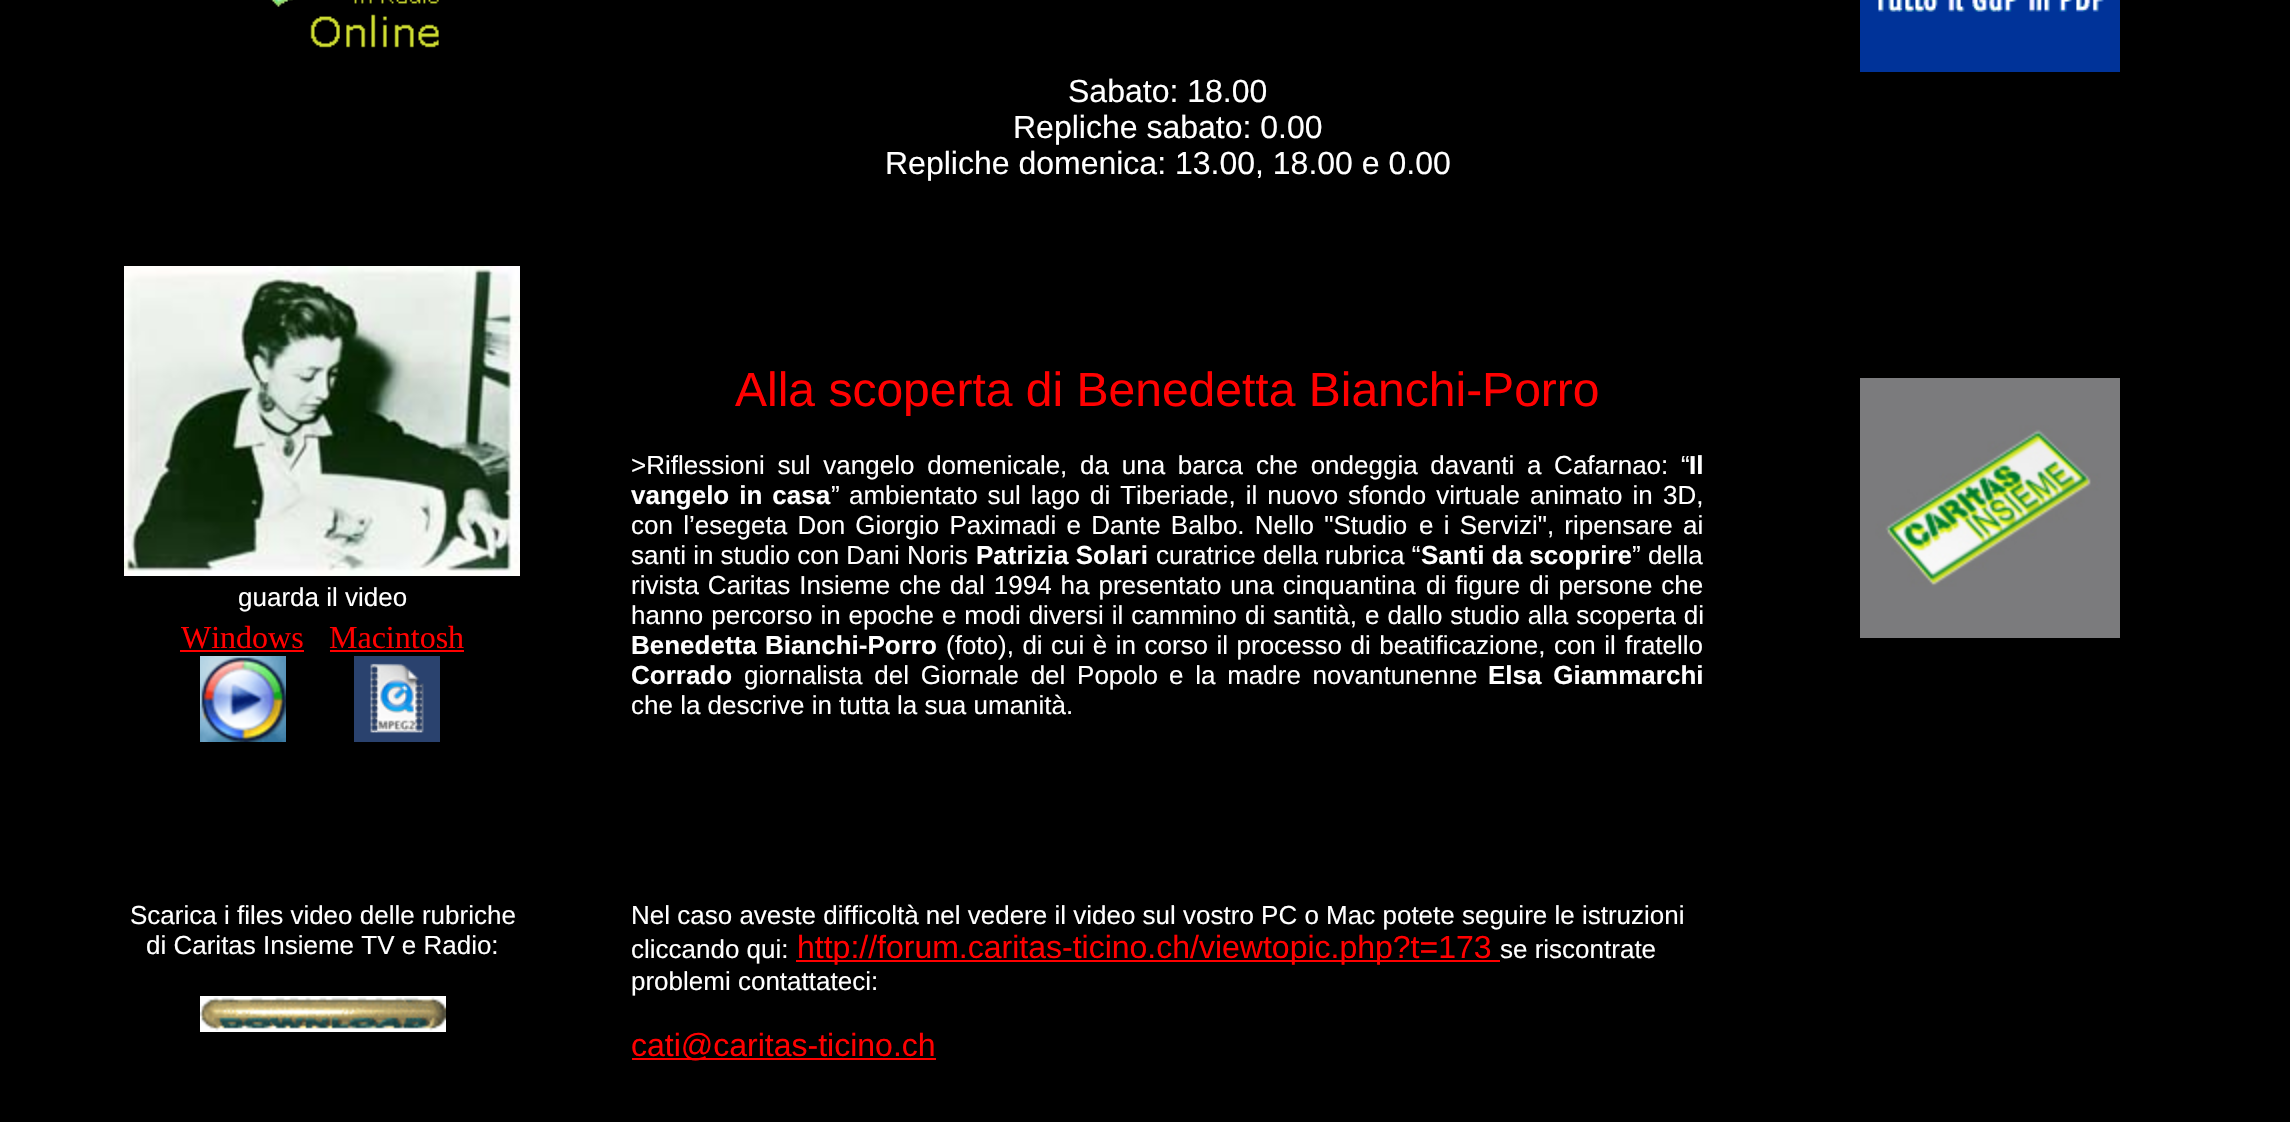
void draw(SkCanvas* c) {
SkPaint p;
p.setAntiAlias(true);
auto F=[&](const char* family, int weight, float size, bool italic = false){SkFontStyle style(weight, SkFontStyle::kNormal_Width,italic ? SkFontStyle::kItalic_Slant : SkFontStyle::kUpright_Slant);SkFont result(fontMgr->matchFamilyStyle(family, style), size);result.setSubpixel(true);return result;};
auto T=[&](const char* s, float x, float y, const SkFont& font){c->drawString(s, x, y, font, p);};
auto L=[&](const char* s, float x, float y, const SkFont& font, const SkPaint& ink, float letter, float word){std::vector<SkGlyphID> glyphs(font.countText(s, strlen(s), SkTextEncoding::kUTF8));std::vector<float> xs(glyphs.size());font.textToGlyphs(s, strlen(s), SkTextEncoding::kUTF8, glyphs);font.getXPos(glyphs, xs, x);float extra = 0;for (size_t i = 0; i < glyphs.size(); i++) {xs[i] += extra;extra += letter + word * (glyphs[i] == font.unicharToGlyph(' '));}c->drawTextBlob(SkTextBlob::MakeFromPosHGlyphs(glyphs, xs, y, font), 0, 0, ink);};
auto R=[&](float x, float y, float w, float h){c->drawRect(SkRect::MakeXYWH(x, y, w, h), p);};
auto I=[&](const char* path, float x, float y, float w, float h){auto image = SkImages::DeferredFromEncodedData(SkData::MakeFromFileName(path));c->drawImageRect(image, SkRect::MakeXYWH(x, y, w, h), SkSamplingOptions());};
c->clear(0xff000000);
I("1.png",270,0,169,48);
I("2.png",1860,0,260,72);
auto f1 = F("Liberation Sans",400,32);
p.setColor(0xffffffff);
T("Sabato: 18.00",1068,102,f1);
T("Repliche sabato: 0.00",1013,138,f1);
T("Repliche domenica: 13.00, 18.00 e 0.00",885,174,f1);
I("3.png",124,266,396,310);
auto f2 = F("Liberation Sans",400,26);
T("guarda il video",238,606,f2);
auto f3 = F("Liberation Serif",400,32);
p.setColor(0xffff0000);
T("Windows",181,648,f3);
R(180,650,124,2);
I("4.png",200,656,86,86);
T("Macintosh",329,648,f3);
R(330,650,134,2);
I("5.png",354,656,86,86);
auto f4 = F("Liberation Sans",400,48);
T("Alla scoperta di Benedetta Bianchi-Porro",735,406,f4);
p.setColor(0xffffffff);
L(">Riflessioni sul vangelo domenicale, da una barca",631,474,f2,p,0,5.5);
L("che ondeggia davanti a Cafarnao: “",1256,474,f2,p,0,5.5);
auto f5 = F("Liberation Sans",700,26);
T("Il",1689,474,f5);
L("vangelo in casa",631,504,f5,p,0,2.75);
T("”",831,504,f2);
L("ambientato sul lago di Tiberiade, il nuovo sfondo virtuale animato in",849,504,f2,p,0,2.75);
T("3D,",1663,504,f2);
L("con l’esegeta Don Giorgio Paximadi e Dante Balbo. Nello \"Studio",631,534,f2,p,0,3);
L("e i Servizi\", ripensare ai",1419,534,f2,p,0,3);
T("santi in studio con Dani Noris",631,564,f2);
T("Patrizia Solari",976,564,f5);
T("curatrice della rubrica “",1156,564,f2);
T("Santi da scoprire",1421,564,f5);
T("” della",1632,564,f2);
L("rivista Caritas Insieme che dal 1994 ha presentato una cinquantina",631,594,f2,p,0,1.75);
L("di figure di persone che",1426,594,f2,p,0,1.75);
L("hanno percorso in epoche e modi diversi il cammino",631,624,f2,p,0,.75);
L("di santità, e dallo studio alla scoperta di",1245,624,f2,p,0,.75);
L("Benedetta Bianchi-Porro",631,654,f5,p,0,1);
L("(foto), di cui è in corso il processo di beatificazione, con il",946,654,f2,p,0,1.25);
T("fratello",1625,654,f2);
T("Corrado",631,684,f5);
L("giornalista del Giornale del Popolo",744,684,f2,p,0,4.5);
L("e la madre novantunenne",1169,684,f2,p,0,4.5);
L("Elsa Giammarchi",1488,684,f5,p,0,4.5);
T("che la descrive in tutta la sua umanità.",631,714,f2);
I("6.png",1860,378,260,260);
T("Scarica i files video delle rubriche",130,924,f2);
T("di Caritas Insieme TV e Radio:",146,954,f2);
I("7.png",200,996,246,36);
T("Nel caso aveste difficoltà nel vedere il video sul vostro PC o Mac potete seguire le istruzioni",631,924,f2);
T("cliccando qui:",631,958,f2);
p.setColor(0xffff0000);
R(796,960,704,2);
T("http://forum.caritas-ticino.ch/viewtopic.php?t=173",797,958,f1);
p.setColor(0xffffffff);
T("se riscontrate",1500,958,f2);
T("problemi contattateci:",631,990,f2);
p.setColor(0xffff0000);
R(632,1058,304,2);
T("cati@caritas-ticino.ch",631,1056,f1);
}
